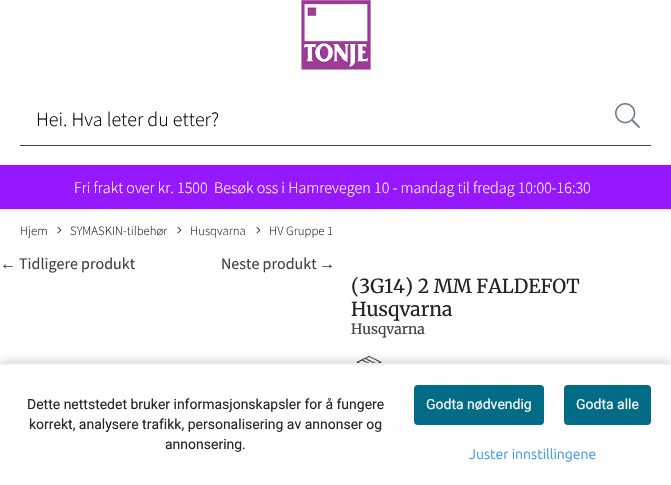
void draw(SkCanvas* c) {
SkPaint p;
p.setAntiAlias(true);
auto F=[&](const char* family, int weight, float size, bool italic = false){SkFontStyle style(weight, SkFontStyle::kNormal_Width,italic ? SkFontStyle::kItalic_Slant : SkFontStyle::kUpright_Slant);SkFont result(fontMgr->matchFamilyStyle(family, style), size);result.setSubpixel(true);return result;};
auto T=[&](const char* s, float x, float y, const SkFont& font){c->drawString(s, x, y, font, p);};
auto R=[&](float x, float y, float w, float h){c->drawRect(SkRect::MakeXYWH(x, y, w, h), p);};
auto Q=[&](float x, float y, float w, float h, float radius){c->drawRoundRect(SkRect::MakeXYWH(x, y, w, h), radius, radius, p);};
auto I=[&](const char* path, float x, float y, float w, float h){auto image = SkImages::DeferredFromEncodedData(SkData::MakeFromFileName(path));c->drawImageRect(image, SkRect::MakeXYWH(x, y, w, h), SkSamplingOptions());};
c->clear(0xffffffff);
I("1.png",301,0,70,70);
p.setColor(0xff444444);
R(20,145,631,1);
auto f1 = F("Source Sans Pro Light",300,20);
p.setColor(0xff000000);
T("Hei. Hva leter du etter?",36,126,f1);
I("2.png",615,103,25,25);
p.setColor(0xff9518ff);
R(0,165,671,44);
p.setColor(0xffeeeeee);
R(0,164,671,1);
R(0,209,671,1);
auto f2 = F("Source Sans Pro Light",300,16);
p.setColor(0xffffffff);
T("Fri frakt over kr. 1500",74,193,f2);
T("Besøk oss i Hamrevegen 10 - mandag til fredag 10:00-16:30",214,193,f2);
auto f3 = F("Source Sans Pro Light",300,12.75);
p.setColor(0xff202121);
T("Hjem",20,235,f3);
I("3.png",57,227,5,7);
T("SYMASKIN-tilbehør",70,235,f3);
I("3.png",177,227,5,7);
T("Husqvarna",190,235,f3);
I("3.png",256,227,5,7);
T("HV Gruppe 1",269,235,f3);
auto f4 = F("Liberation Sans",400,16);
p.setColor(0xff3c4247);
T("←",0,269,f4);
auto f5 = F("Source Sans Pro",400,16);
T("Tidligere produkt",19,269,f5);
T("Neste produkt",221,269,f5);
T("→",319,269,f4);
auto f6 = F("Merriweather",400,19.25);
p.setColor(0xff212529);
T("(3G14) 2 MM FALDEFOT",351,293,f6);
T("Husqvarna",351,316,f6);
auto f7 = F("Merriweather",400,14);
p.setColor(0xff3c4247);
T("Husqvarna",351,334,f7);
I("4.png",356,356,26,7);
p.setColor(0x40000000);
p.setMaskFilter(SkMaskFilter::MakeBlur(kNormal_SkBlurStyle, 5));
c->drawRect(SkRect::MakeXYWH(0,363,671,122),p);
p.setMaskFilter(nullptr);
p.setColor(0xffffffff);
R(0,365,671,120);
p.setColor(0xffeeeeee);
R(0,363,671,2);
auto f8 = F("Roboto",400,14);
p.setColor(0xff212529);
T("Dette nettstedet bruker informasjonskapsler for å fungere",27,409,f8);
T("korrekt, analysere trafikk, personalisering av annonser og",29,429,f8);
T("annonsering.",165,449,f8);
p.setColor(0xff026b85);
Q(414,385,130,40,4);
p.setColor(0xffffffff);
T("Godta nødvendig",426,409,f8);
p.setColor(0xff026b85);
Q(564,385,87,40,4);
p.setColor(0xffffffff);
T("Godta alle",576,409,f8);
auto f9 = F("Ubuntu",400,14);
p.setColor(0xff409aef);
T("Juster innstillingene",469,459,f9);
}
